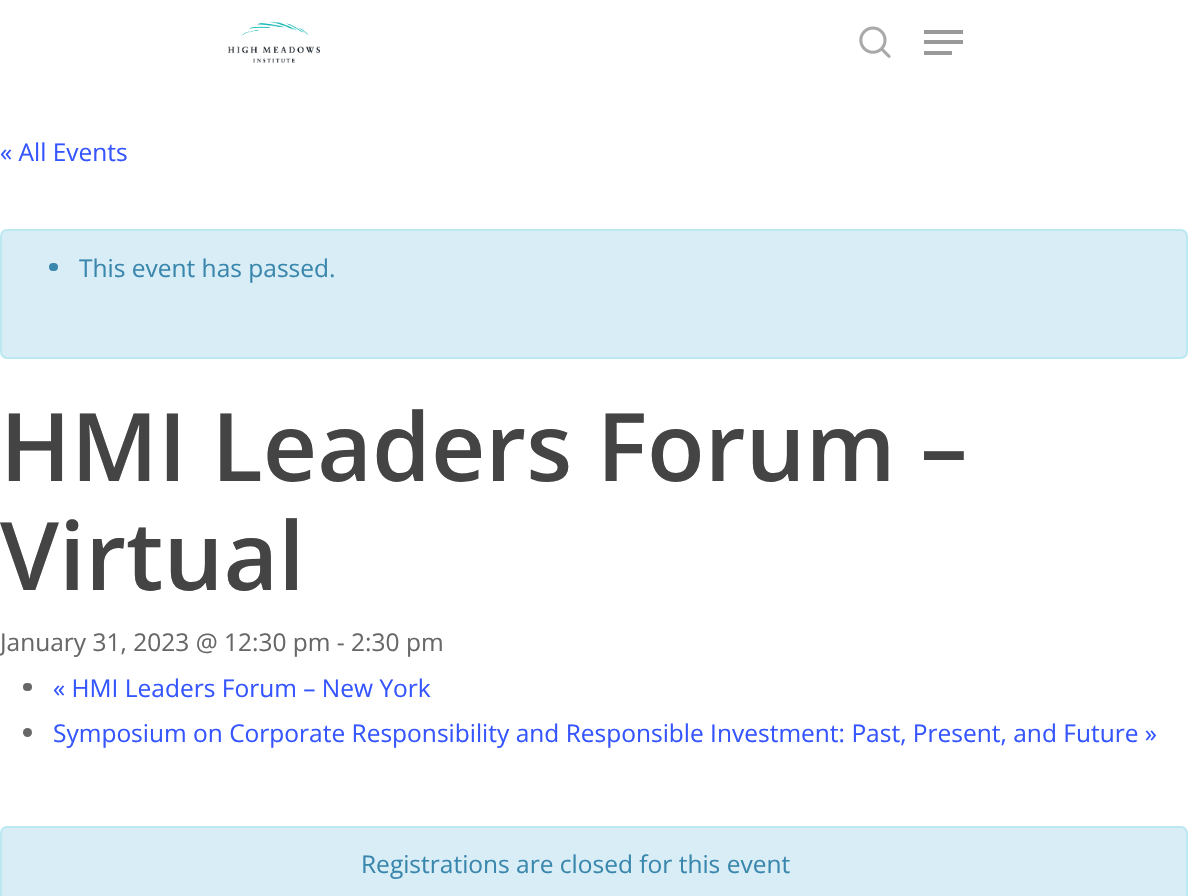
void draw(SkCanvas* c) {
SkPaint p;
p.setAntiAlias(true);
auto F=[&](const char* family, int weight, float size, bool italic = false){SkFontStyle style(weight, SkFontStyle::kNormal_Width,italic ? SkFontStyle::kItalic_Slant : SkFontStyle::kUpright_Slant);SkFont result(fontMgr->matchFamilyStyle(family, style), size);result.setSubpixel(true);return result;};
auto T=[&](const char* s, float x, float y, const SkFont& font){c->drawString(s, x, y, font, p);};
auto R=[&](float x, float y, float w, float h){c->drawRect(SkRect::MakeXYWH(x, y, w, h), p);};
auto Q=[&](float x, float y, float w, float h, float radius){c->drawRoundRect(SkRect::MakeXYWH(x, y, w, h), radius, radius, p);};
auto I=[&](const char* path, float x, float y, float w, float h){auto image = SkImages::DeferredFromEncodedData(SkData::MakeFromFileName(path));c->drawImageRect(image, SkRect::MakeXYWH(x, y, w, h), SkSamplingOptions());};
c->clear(0xffffffff);
I("1.png",228,21,92,42);
I("2.png",859,26,32,32);
p.setColor(0xff999999);
R(924,30,39,4);
R(924,51,28,4);
R(924,40,39,4);
auto f1 = F("Open Sans",400,24.5);
p.setColor(0xff3555ff);
T("« All Events",0,161,f1);
p.setColor(0xffd9edf7);
c->drawRoundRect(SkRect::MakeXYWH(1,230,1186,128),6,6,p);
p.setStroke(true);
p.setStrokeWidth(2);
p.setColor(0xffbce8f1);
c->drawRoundRect(SkRect::MakeXYWH(1,230,1186,128),6,6,p);
p.setStroke(false);
p.setColor(0xff3a87ad);
Q(49,263,9,8,4);
T("This event has passed.",79,277,f1);
auto f2 = F("Open Sans",600,94.5);
p.setColor(0xff444444);
T("HMI Leaders Forum –",0,481,f2);
T("Virtual",0,590,f2);
p.setColor(0xff676767);
T("January 31, 2023 @ 12:30 pm - 2:30 pm",0,651,f1);
Q(23,683,9,8,4);
p.setColor(0xff3555ff);
T("« HMI Leaders Forum – New York",53,697,f1);
p.setColor(0xff676767);
c->drawCircle(27.5,732.5,4.5,p);
p.setColor(0xff3555ff);
T("Symposium on Corporate Responsibility and Responsible Investment: Past, Present, and Future »",53,742,f1);
p.setColor(0xffd9edf7);
c->drawRoundRect(SkRect::MakeXYWH(1,827,1186,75),6,6,p);
p.setStroke(true);
p.setColor(0xffbce8f1);
c->drawRoundRect(SkRect::MakeXYWH(1,827,1186,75),6,6,p);
p.setStroke(false);
p.setColor(0xff3a87ad);
T("Registrations are closed for this event",361,873,f1);
}
